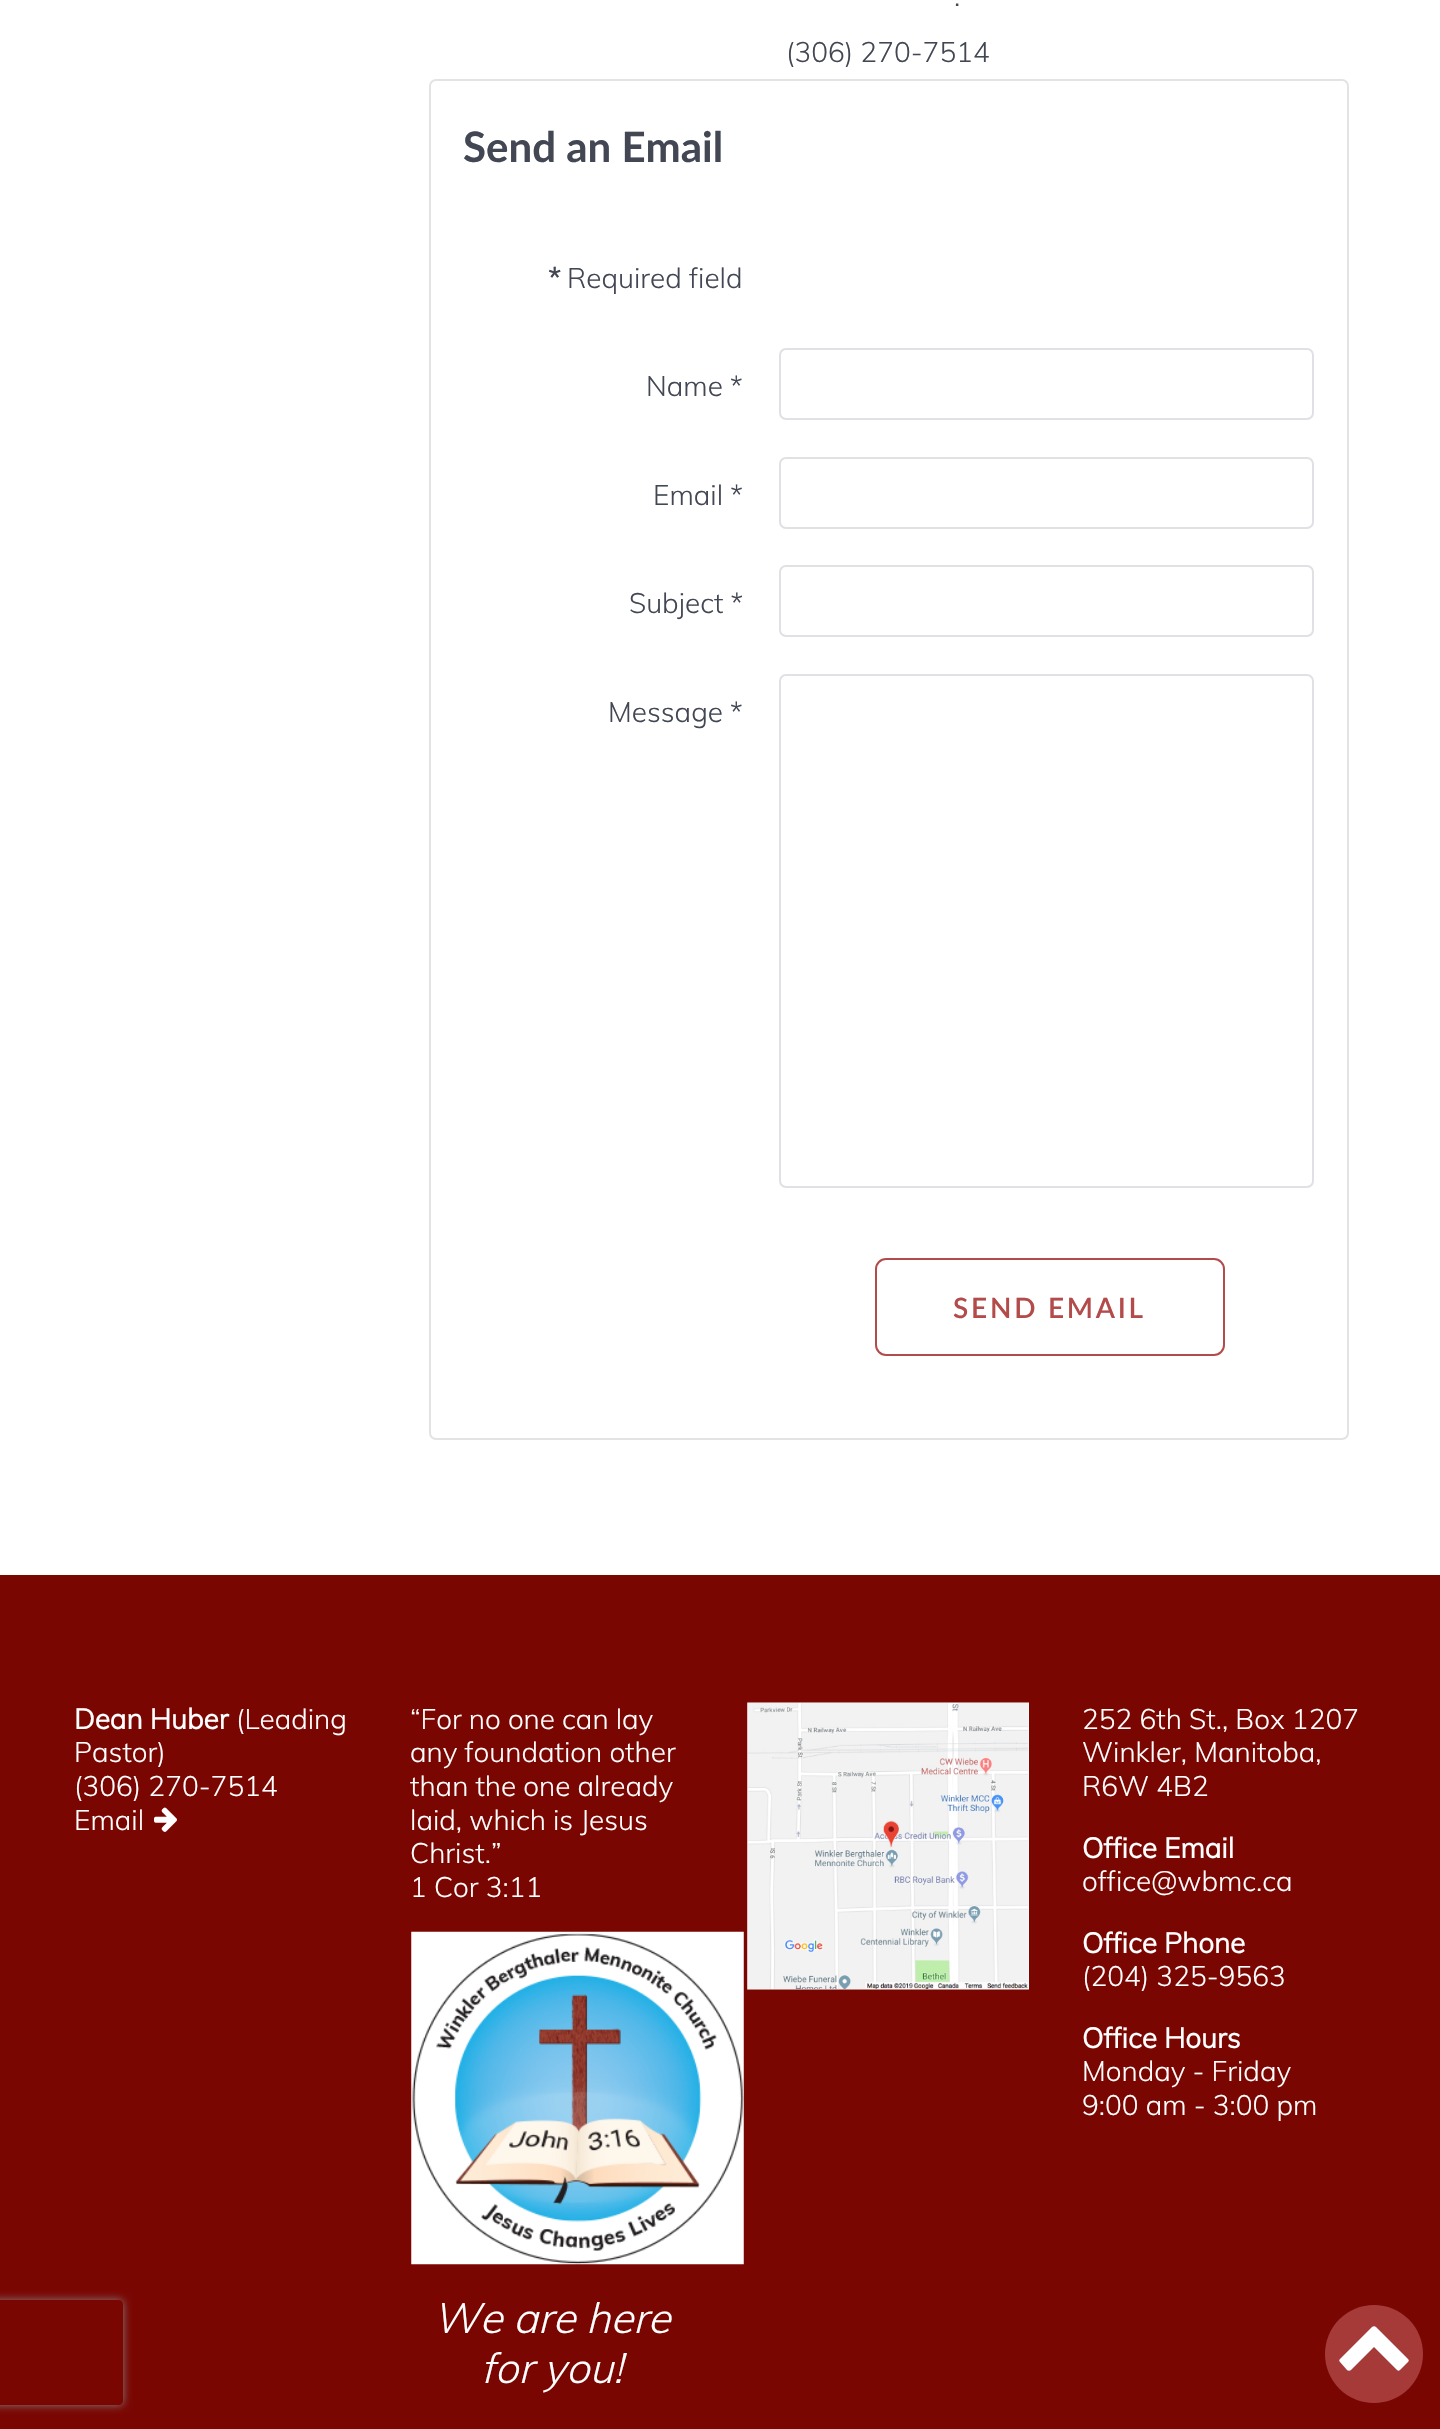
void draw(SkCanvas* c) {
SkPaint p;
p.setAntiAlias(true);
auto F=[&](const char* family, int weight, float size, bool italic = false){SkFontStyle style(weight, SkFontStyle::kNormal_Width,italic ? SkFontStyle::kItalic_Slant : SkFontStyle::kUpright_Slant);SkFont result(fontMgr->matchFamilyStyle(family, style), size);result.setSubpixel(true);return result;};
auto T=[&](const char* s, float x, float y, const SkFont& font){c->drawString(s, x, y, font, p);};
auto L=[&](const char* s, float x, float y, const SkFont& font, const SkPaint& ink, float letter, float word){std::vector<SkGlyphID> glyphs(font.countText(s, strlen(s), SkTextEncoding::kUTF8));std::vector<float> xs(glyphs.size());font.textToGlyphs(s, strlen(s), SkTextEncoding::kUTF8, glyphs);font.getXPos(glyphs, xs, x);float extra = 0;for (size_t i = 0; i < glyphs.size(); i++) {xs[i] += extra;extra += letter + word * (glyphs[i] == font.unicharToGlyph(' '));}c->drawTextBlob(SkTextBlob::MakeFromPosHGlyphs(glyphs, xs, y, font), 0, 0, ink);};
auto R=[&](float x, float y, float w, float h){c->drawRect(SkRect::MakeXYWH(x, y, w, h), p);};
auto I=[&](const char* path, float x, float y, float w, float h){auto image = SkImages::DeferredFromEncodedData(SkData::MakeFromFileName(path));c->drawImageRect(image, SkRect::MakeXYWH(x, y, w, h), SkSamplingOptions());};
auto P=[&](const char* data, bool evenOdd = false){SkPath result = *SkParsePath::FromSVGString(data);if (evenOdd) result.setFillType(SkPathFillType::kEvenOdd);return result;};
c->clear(0xffffffff);
auto f1 = F("Muli",300,28);
p.setColor(0xff424753);
T(".",954,6,f1);
T("(306) 270-7514",786,62,f1);
p.setStroke(true);
p.setStrokeWidth(2);
p.setColor(0xffe3e3e3);
c->drawRoundRect(SkRect::MakeXYWH(430,80,918,1359),6,6,p);
auto f2 = F("Lato",700,42);
p.setStroke(false);
p.setColor(0xff424753);
T("Send an Email",463,162,f2);
auto f3 = F("Muli",700,28);
T("*",548,288,f3);
T("Required field",567,288,f1);
T("Name *",646,396,f1);
p.setStroke(true);
p.setColor(0xffe0e0e5);
c->drawRoundRect(SkRect::MakeXYWH(780,349,533,70),6,6,p);
p.setStroke(false);
p.setColor(0xff424753);
T("Email *",653,505,f1);
p.setStroke(true);
p.setColor(0xffe0e0e5);
c->drawRoundRect(SkRect::MakeXYWH(780,458,533,70),6,6,p);
p.setStroke(false);
p.setColor(0xff424753);
T("Subject *",629,613,f1);
p.setStroke(true);
p.setColor(0xffe0e0e5);
c->drawRoundRect(SkRect::MakeXYWH(780,566,533,70),6,6,p);
p.setStroke(false);
p.setColor(0xff424753);
T("Message *",608,722,f1);
p.setStroke(true);
p.setColor(0xffe0e0e5);
c->drawRoundRect(SkRect::MakeXYWH(780,675,533,512),6,6,p);
p.setColor(0xffb34b4b);
c->drawRoundRect(SkRect::MakeXYWH(876,1259,348,96),10,10,p);
auto f4 = F("Lato",600,28);
p.setStroke(false);
L("SEND EMAIL",953,1318,f4,p,2.75,0);
p.setColor(0xff7a0602);
R(0,1575,1440,854);
c->save();
c->clipPath(P("M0 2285h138v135h-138zm-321 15h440c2 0 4 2 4 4v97c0 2-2 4-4 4h-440c-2 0-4-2-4-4v-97c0-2 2-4 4-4z",true),true);
p.setColor(0xff808080);
p.setMaskFilter(SkMaskFilter::MakeBlur(kNormal_SkBlurStyle, 4.5));
c->drawRoundRect(SkRect::MakeXYWH(-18,2300,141,105),4,4,p);
p.setMaskFilter(nullptr);
c->restore();
p.setColor(0xffffffff);
T("Dean Huber",74,1729,f3);
T("(Leading",236,1729,f1);
T("Pastor)",74,1762,f1);
T("(306) 270-7514",74,1796,f1);
T("Email",74,1830,f1);
I("1.png",154,1807,23,25);
T("“For no one can lay",410,1729,f1);
T("any foundation other",410,1762,f1);
T("than the one already",410,1796,f1);
T("laid, which is Jesus",410,1830,f1);
T("Christ.”",410,1863,f1);
T("1 Cor 3:11",410,1897,f1);
I("2.png",411,1931,333,334);
auto f5 = F("Muli",300,42,true);
T("We are here",433,2333,f5);
T("for you!",481,2383,f5);
I("3.png",747,1702,282,288);
T("252 6th St., Box 1207",1082,1729,f1);
T("Winkler, Manitoba,",1082,1762,f1);
T("R6W 4B2",1082,1796,f1);
T("Office Email",1082,1858,f3);
T("office@wbmc.ca",1082,1891,f1);
T("Office Phone",1082,1953,f3);
T("(204) 325-9563",1082,1986,f1);
T("Office Hours",1082,2048,f3);
T("Monday - Friday",1082,2081,f1);
T("9:00 am - 3:00 pm",1082,2115,f1);
p.setColor(0xffa53a39);
c->drawCircle(1374,2354,49,p);
p.setColor(0xffffffff);
c->drawPath(P("M1408 2362c1-1 1-2 0-3l-32-32c-1-1-3-1-4 0l-32 32c-1 1-1 2 0 3l7 8c1 1 3 1 4 0l23-23l23 23c1 1 2 1 3 0z"),p);
}
